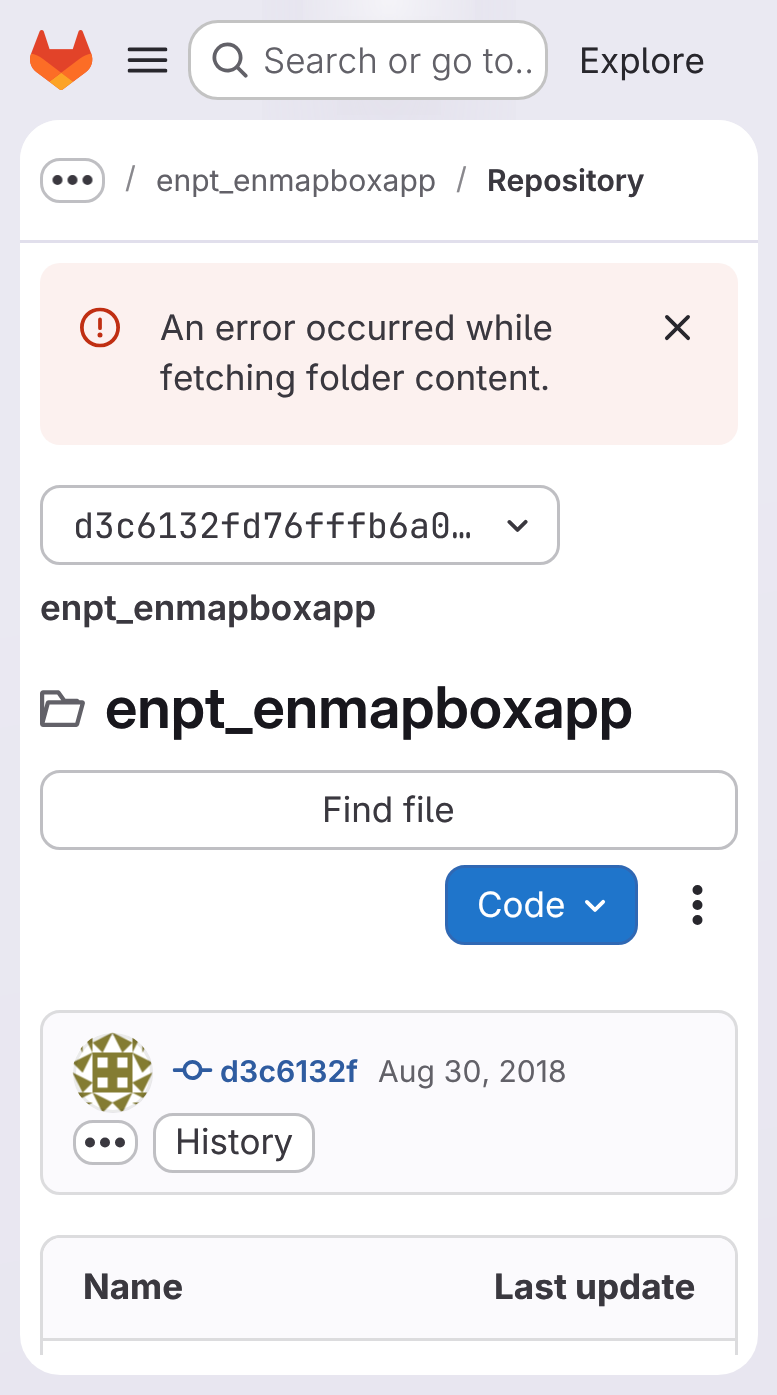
void draw(SkCanvas* c) {
SkPaint p;
p.setAntiAlias(true);
auto F=[&](const char* family, int weight, float size, bool italic = false){SkFontStyle style(weight, SkFontStyle::kNormal_Width,italic ? SkFontStyle::kItalic_Slant : SkFontStyle::kUpright_Slant);SkFont result(fontMgr->matchFamilyStyle(family, style), size);result.setSubpixel(true);return result;};
auto T=[&](const char* s, float x, float y, const SkFont& font){c->drawString(s, x, y, font, p);};
auto R=[&](float x, float y, float w, float h){c->drawRect(SkRect::MakeXYWH(x, y, w, h), p);};
auto Q=[&](float x, float y, float w, float h, float radius){c->drawRoundRect(SkRect::MakeXYWH(x, y, w, h), radius, radius, p);};
auto I=[&](const char* path, float x, float y, float w, float h){auto image = SkImages::DeferredFromEncodedData(SkData::MakeFromFileName(path));c->drawImageRect(image, SkRect::MakeXYWH(x, y, w, h), SkSamplingOptions());};
auto P=[&](const char* data, bool evenOdd = false){SkPath result = *SkParsePath::FromSVGString(data);if (evenOdd) result.setFillType(SkPathFillType::kEvenOdd);return result;};
c->clear(0xffffffff);
{
const SkColor colors[] = {0xffe8e6f0,0xffeae9f2};
const float stops[] = {0,.7};
const SkPoint ends[] = {{520,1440}, {258,-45}};
p.setShader(SkGradientShader::MakeLinear(ends, colors, stops, 2, SkTileMode::kClamp));
p.setAlpha(255);
}
R(0,0,777,1395);
{
const SkColor colors[] = {0xffe4e2ed,0x00e4e2ed};
const float stops[] = {0,.45};
SkMatrix m = SkMatrix::Translate(389,0).preScale(389,1395);
p.setShader(SkGradientShader::MakeRadial({0, 0}, 1, colors, stops, 2, SkTileMode::kClamp, 0, &m));
p.setAlpha(255);
}
R(262,0,254,120);
{
const SkColor colors[] = {0xffe4e2ec,0x00e4e2ec};
const float stops[] = {0,.32};
SkMatrix m = SkMatrix::Translate(389,0).preScale(389,1395);
p.setShader(SkGradientShader::MakeRadial({0, 0}, 1, colors, stops, 2, SkTileMode::kClamp, 0, &m));
p.setAlpha(255);
}
R(337,16,104,99);
{
const SkColor colors[] = {0x99ffffff,0x00ffffff};
const float stops[] = {0,.07};
p.setShader(SkGradientShader::MakeRadial({389,0}, 1448, colors, stops, 2, SkTileMode::kClamp));
p.setAlpha(255);
}
R(303,0,172,20);
I("1.png",30,30,63,60);
I("2.png",127,47,41,26);
p.setShader(nullptr);
p.setColor(0xffffffff);
Q(188,20,360,80,30);
p.setStroke(true);
p.setStrokeWidth(3);
p.setColor(0x3d050506);
c->drawRoundRect(SkRect::MakeXYWH(189.5,21.5,357,77),28.5,28.5,p);
I("3.png",212,42,36,36);
c->save();
c->clipRect(SkRect::MakeXYWH(210,35,325,50));
auto f1 = F("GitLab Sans",300,35);
p.setStroke(false);
p.setColor(0xff626168);
T("Search or go to…",263,73,f1);
c->restore();
auto f2 = F("GitLab Sans",400,35);
p.setColor(0xff28272d);
T("Explore",579,73,f2);
p.setColor(0xffffffff);
Q(20,120,738,1255,40);
c->drawPath(P("M60 120h658c22 0 40 18 40 40v83h-738v-83c0-22 18-40 40-40z"),p);
p.setColor(0xffe1dfec);
R(20,240,738,3);
p.setStroke(true);
p.setColor(0xffbfbfc3);
c->drawRoundRect(SkRect::MakeXYWH(41.5,159.5,62,42),18.5,18.5,p);
I("4.png",52,175,41,10);
auto f3 = F("GitLab Sans",400,30);
p.setStroke(false);
p.setColor(0xff89888d);
T("/",125,188,f3);
p.setColor(0xff626168);
T("enpt_enmapboxapp",156,191,f3);
p.setColor(0xff89888d);
T("/",456,189,f3);
auto f4 = F("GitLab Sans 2",600,30);
p.setColor(0xff3a383f);
T("Repository",487,191,f4);
p.setColor(0xfffcf1ef);
Q(40,263,698,182,20);
I("5.png",80,307,40,41);
p.setColor(0xff3a383f);
T("An error occurred while",160,340,f2);
T("fetching folder content.",160,390,f2);
I("6.png",664,315,26,26);
p.setStroke(true);
p.setColor(0xffbfbfc3);
c->drawRoundRect(SkRect::MakeXYWH(41.5,486.5,517,77),18.5,18.5,p);
auto f5 = F("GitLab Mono",400,35);
p.setStroke(false);
p.setColor(0xff3a383f);
T("d3c6132fd76fffb6a0…",73,538,f5);
I("7.png",507,519,21,13);
auto f6 = F("GitLab Sans 2",600,35);
T("enpt_enmapboxapp",40,620,f6);
I("8.png",40,690,45,37);
auto f7 = F("GitLab Sans",600,57.5);
p.setColor(0xff18171d);
T("enpt_enmapboxapp",105,728,f7);
p.setStroke(true);
p.setColor(0xffbfbfc3);
c->drawRoundRect(SkRect::MakeXYWH(41.5,771.5,695,77),18.5,18.5,p);
p.setStroke(false);
p.setColor(0xff3a383f);
T("Find file",322,822,f2);
p.setColor(0xff1f75cb);
c->drawRoundRect(SkRect::MakeXYWH(446.5,866.5,190,77),18.5,18.5,p);
p.setStroke(true);
p.setColor(0xff2f68b4);
c->drawRoundRect(SkRect::MakeXYWH(446.5,866.5,190,77),18.5,18.5,p);
p.setStroke(false);
p.setColor(0xffffffff);
T("Code",477,917,f2);
I("9.png",585,899,21,13);
I("10.png",692,885,11,40);
p.setColor(0xfffbfafd);
c->drawRoundRect(SkRect::MakeXYWH(41.5,1011.5,695,182),18.5,18.5,p);
p.setStroke(true);
p.setColor(0xffdcdcde);
c->drawRoundRect(SkRect::MakeXYWH(41.5,1011.5,695,182),18.5,18.5,p);
I("11.png",72,1032,81,80);
p.setColor(0x14050506);
c->drawCircle(113,1073,38.5,p);
I("12.png",172,1060,41,20);
p.setStroke(false);
p.setColor(0xff2f5ca0);
T("d3c6132f",220,1082,f4);
p.setColor(0xff626168);
T("Aug 30, 2018",378,1082,f3);
p.setColor(0xffffffff);
c->drawRoundRect(SkRect::MakeXYWH(74.5,1121.5,62,42),18.5,18.5,p);
p.setStroke(true);
p.setColor(0xffbfbfc3);
c->drawRoundRect(SkRect::MakeXYWH(74.5,1121.5,62,42),18.5,18.5,p);
I("13.png",85,1137,40,11);
p.setStroke(false);
p.setColor(0xffffffff);
c->drawRoundRect(SkRect::MakeXYWH(154.5,1114.5,159,57),18.5,18.5,p);
p.setStroke(true);
p.setColor(0xffbfbfc3);
c->drawRoundRect(SkRect::MakeXYWH(154.5,1114.5,159,57),18.5,18.5,p);
p.setStroke(false);
p.setColor(0xff3a383f);
T("History",175,1154,f2);
c->save();
c->clipRect(SkRect::MakeXYWH(20,243,738,1112));
p.setColor(0xffdcdcde);
c->drawPath(P("M60 1235c-11 0-20 9-20 20v115l3 1v-116c0-9 8-17 17-17h658c9 0 17 8 17 17v116l3-1v-115c0-11-9-20-20-20z"),p);
c->restore();
p.setColor(0xfffbfafd);
c->drawPath(P("M61 1238h329v100h-347v-82c0-10 8-18 18-18z"),p);
auto f8 = F("GitLab Sans",700,35);
p.setColor(0xff3a383f);
T("Name",83,1299,f8);
p.setColor(0xfffbfafd);
c->drawPath(P("M390 1238h327c10 0 18 8 18 18v82h-345z"),p);
p.setColor(0xff3a383f);
T("Last update",494,1299,f8);
p.setColor(0xffdcdcde);
R(43,1338,692,3);
}
